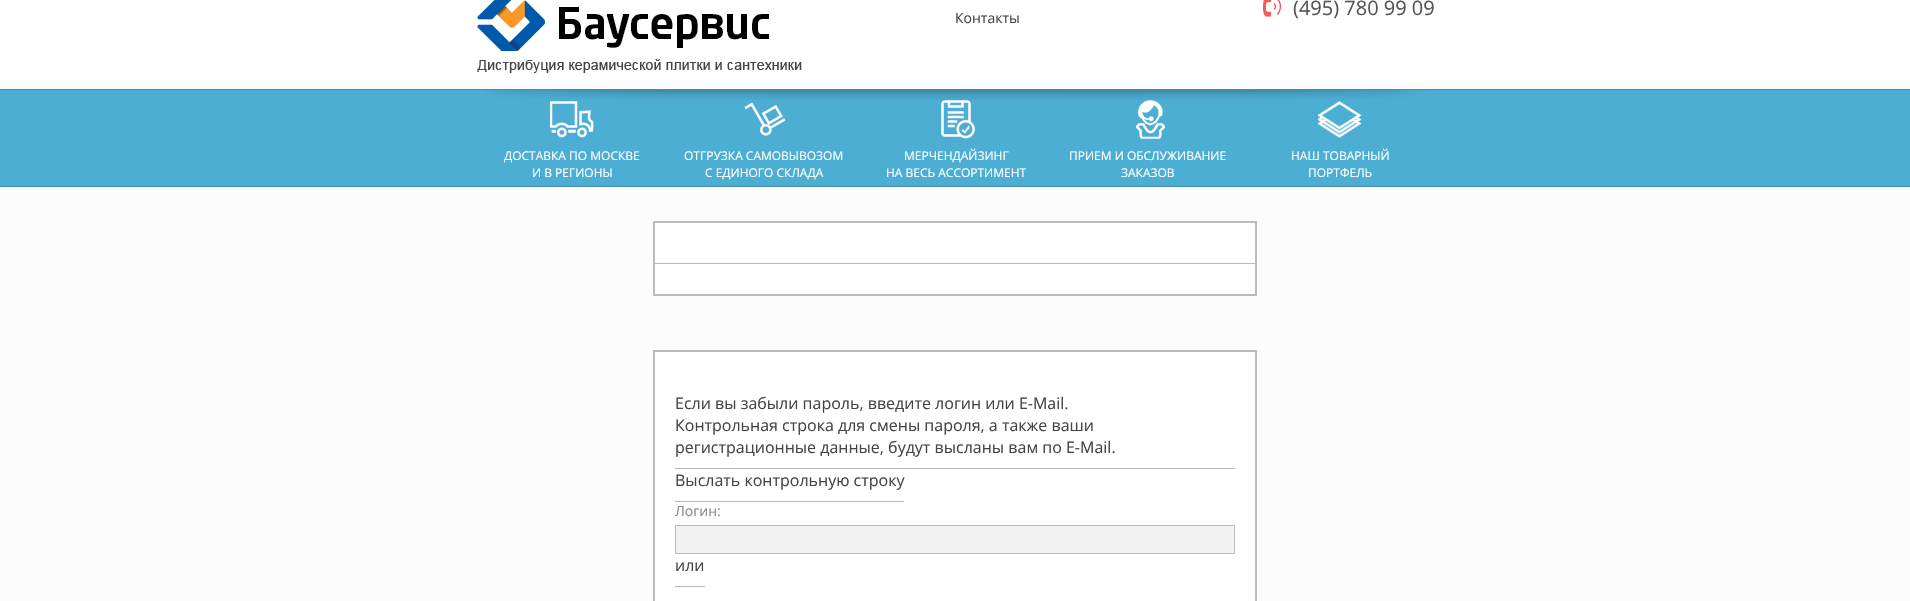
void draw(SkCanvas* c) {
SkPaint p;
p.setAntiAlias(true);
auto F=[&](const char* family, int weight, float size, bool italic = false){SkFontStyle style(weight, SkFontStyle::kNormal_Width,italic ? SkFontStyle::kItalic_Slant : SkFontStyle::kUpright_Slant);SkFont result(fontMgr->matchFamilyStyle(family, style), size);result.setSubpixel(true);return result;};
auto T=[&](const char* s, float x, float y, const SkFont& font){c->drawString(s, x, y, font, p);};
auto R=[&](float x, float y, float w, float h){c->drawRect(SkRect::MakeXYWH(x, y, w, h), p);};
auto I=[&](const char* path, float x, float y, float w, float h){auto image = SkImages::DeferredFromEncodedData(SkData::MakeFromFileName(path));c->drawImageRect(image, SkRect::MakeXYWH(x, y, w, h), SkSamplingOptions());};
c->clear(0xffffffff);
I("1.png",477,0,325,73);
auto f1 = F("Open Sans",400,14);
p.setColor(0xff444444);
T("Контакты",955,23,f1);
I("2.png",1263,0,18,17);
auto f2 = F("Open Sans",400,20);
p.setColor(0xff555555);
T("(495) 780 99 09",1293,15,f2);
p.setColor(0xfffcfcfc);
R(0,85,1910,516);
p.setColor(0xff4caed3);
R(0,90,1910,96);
p.setColor(0xff478fa5);
R(0,89,1910,1);
R(0,186,1910,1);
I("3.png",485,90,940,10);
I("4.png",550,101,44,37);
auto f3 = F("Open Sans",400,12);
p.setColor(0xffffffff);
T("ДОСТАВКА ПО МОСКВЕ",504,160,f3);
T("И В РЕГИОНЫ",532,177,f3);
I("5.png",744,102,42,34);
T("ОТГРУЗКА САМОВЫВОЗОМ",684,160,f3);
T("С ЕДИНОГО СКЛАДА",705,177,f3);
I("6.png",941,100,34,39);
T("МЕРЧЕНДАЙЗИНГ",904,160,f3);
T("НА ВЕСЬ АССОРТИМЕНТ",886,177,f3);
I("7.png",1135,100,31,39);
T("ПРИЕМ И ОБСЛУЖИВАНИЕ",1069,160,f3);
T("ЗАКАЗОВ",1121,177,f3);
I("8.png",1318,101,44,37);
T("НАШ ТОВАРНЫЙ",1291,160,f3);
T("ПОРТФЕЛЬ",1308,177,f3);
c->drawRect(SkRect::MakeXYWH(654,222,602,73),p);
p.setStroke(true);
p.setStrokeWidth(2);
p.setColor(0xffbbbbbb);
c->drawRect(SkRect::MakeXYWH(654,222,602,73),p);
p.setStroke(false);
R(655,263,600,1);
p.setColor(0xffffffff);
c->drawRect(SkRect::MakeXYWH(654,351,602,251),p);
p.setStroke(true);
p.setColor(0xffbbbbbb);
c->drawRect(SkRect::MakeXYWH(654,351,602,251),p);
p.setStroke(false);
R(675,468,560,1);
auto f4 = F("Open Sans",400,16);
p.setColor(0xff444444);
T("Если вы забыли пароль, введите логин или E-Mail.",675,409,f4);
T("Контрольная строка для смены пароля, а также ваши",675,431,f4);
T("регистрационные данные, будут высланы вам по E-Mail.",675,453,f4);
T("Выслать контрольную строку",675,486,f4);
p.setColor(0xffbbbbbb);
R(675,501,229,1);
p.setColor(0xff888888);
T("Логин:",675,516,f1);
p.setColor(0xfff2f2f2);
c->drawRect(SkRect::MakeXYWH(675.5,525.5,559,28),p);
p.setStroke(true);
p.setStrokeWidth(1);
p.setColor(0xffbbbbbb);
c->drawRect(SkRect::MakeXYWH(675.5,525.5,559,28),p);
p.setStroke(false);
p.setColor(0xff444444);
T("или",675,571,f4);
p.setColor(0xffbbbbbb);
R(675,586,30,1);
}
